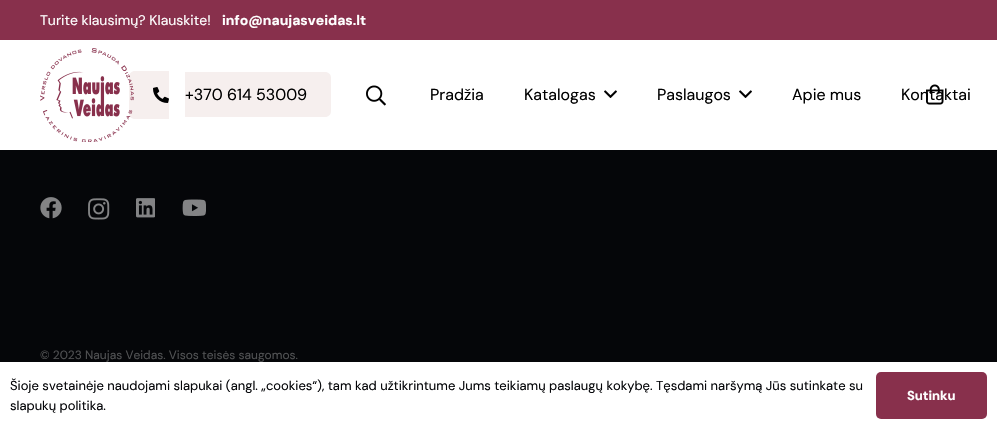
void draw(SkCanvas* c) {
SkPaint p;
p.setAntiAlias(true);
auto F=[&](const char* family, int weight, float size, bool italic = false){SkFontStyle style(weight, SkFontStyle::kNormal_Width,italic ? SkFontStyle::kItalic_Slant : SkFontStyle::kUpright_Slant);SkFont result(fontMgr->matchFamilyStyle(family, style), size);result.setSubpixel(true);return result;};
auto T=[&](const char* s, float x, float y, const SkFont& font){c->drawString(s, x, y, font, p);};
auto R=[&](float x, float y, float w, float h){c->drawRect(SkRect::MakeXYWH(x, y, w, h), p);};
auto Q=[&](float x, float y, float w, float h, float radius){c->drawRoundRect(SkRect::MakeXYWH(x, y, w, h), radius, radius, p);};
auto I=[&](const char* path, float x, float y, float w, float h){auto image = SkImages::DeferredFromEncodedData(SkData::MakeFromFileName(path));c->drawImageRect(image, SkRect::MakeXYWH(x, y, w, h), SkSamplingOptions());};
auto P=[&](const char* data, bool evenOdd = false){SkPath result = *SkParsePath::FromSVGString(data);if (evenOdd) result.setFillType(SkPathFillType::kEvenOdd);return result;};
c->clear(0xff050609);
p.setColor(0xff88304c);
R(0,0,997,40);
auto f1 = F("DM Sans",400,14);
p.setColor(0xffffffff);
T("Turite klausimų? Klauskite!",40,25,f1);
auto f2 = F("DM Sans",700,14);
T("info@naujasveidas.lt",222,25,f2);
R(0,40,997,110);
p.setColor(0xfff6efee);
c->drawPath(P("M135 71h34v48h-34c-3.5 0-6-2.5-6-6v-36c0-3.5 2.5-6 6-6z"),p);
I("1.png",40,48,94,94);
c->drawPath(P("M185 72h140c3.5 0 6 2.5 6 6v33c0 3.5-2.5 6-6 6h-140z"),p);
I("2.png",153,87,16,16);
auto f3 = F("DM Sans",400,16);
p.setColor(0xff000000);
T("+370 614 53009",185,100,f3);
I("3.png",366,85,20,21);
I("4.png",926,84,18,21);
T("Pradžia",430,100,f3);
T("Katalogas",524,100,f3);
I("5.png",604,90,13,8);
T("Paslaugos",657,100,f3);
I("5.png",739,90,13,8);
T("Apie mus",792,100,f3);
T("Kontaktai",901,100,f3);
I("6.png",40,197,22,22);
I("7.png",88,198,22,22);
I("8.png",136,198,19,20);
I("9.png",182,199,24,17);
auto f4 = F("DM Sans",400,12);
p.setColor(0xff505153);
T("© 2023 Naujas Veidas. Visos teisės saugomos.",40,359,f4);
p.setColor(0xffffffff);
R(0,362,997,67);
auto f5 = F("DM Sans",400,13);
p.setColor(0xff050609);
T("Šioje svetainėje naudojami slapukai (angl. „cookies“), tam kad užtikrintume Jums teikiamų paslaugų kokybę. Tęsdami naršymą Jūs sutinkate su",10,390,f5);
T("slapukų politika.",10,410,f5);
p.setColor(0xff88304c);
Q(876,372,111,47,5);
auto f6 = F("DM Sans",700,13);
p.setColor(0xffffffff);
T("Sutinku",907,400,f6);
}
